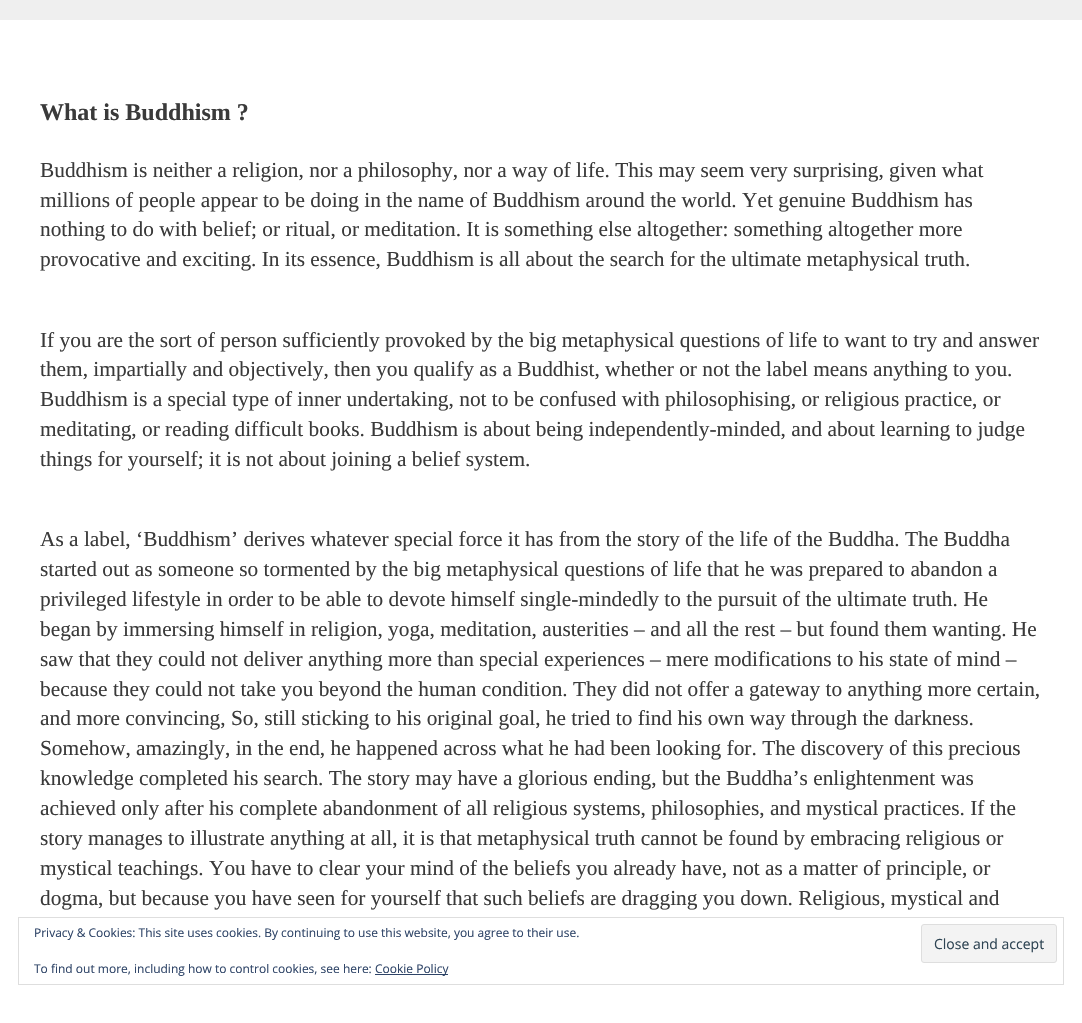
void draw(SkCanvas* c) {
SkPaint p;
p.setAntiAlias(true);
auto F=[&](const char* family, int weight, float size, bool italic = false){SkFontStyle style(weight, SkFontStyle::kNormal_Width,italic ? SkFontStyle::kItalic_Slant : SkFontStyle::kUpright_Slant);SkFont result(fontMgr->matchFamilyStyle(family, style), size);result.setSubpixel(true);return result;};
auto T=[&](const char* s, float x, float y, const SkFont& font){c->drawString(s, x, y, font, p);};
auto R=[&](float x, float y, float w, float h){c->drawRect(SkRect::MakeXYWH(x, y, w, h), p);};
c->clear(0xffefefef);
p.setColor(0xffffffff);
R(0,20,1082,1003);
auto f1 = F("Liberation Serif",700,24);
p.setColor(0xff3a3a3a);
T("What is Buddhism ?",40,120,f1);
auto f2 = F("Liberation Serif",400,21.35);
T("Buddhism is neither a religion, nor a philosophy, nor a way of life. This may seem very surprising, given what",40,177,f2);
T("millions of people appear to be doing in the name of Buddhism around the world. Yet genuine Buddhism has",40,207,f2);
T("nothing to do with belief; or ritual, or meditation. It is something else altogether: something altogether more",40,236,f2);
T("provocative and exciting. In its essence, Buddhism is all about the search for the ultimate metaphysical truth.",40,266,f2);
T("If you are the sort of person sufficiently provoked by the big metaphysical questions of life to want to try and answer",40,347,f2);
T("them, impartially and objectively, then you qualify as a Buddhist, whether or not the label means anything to you.",40,376,f2);
T("Buddhism is a special type of inner undertaking, not to be confused with philosophising, or religious practice, or",40,406,f2);
T("meditating, or reading difficult books. Buddhism is about being independently-minded, and about learning to judge",40,436,f2);
T("things for yourself; it is not about joining a belief system.",40,466,f2);
T("As a label, ‘Buddhism’ derives whatever special force it has from the story of the life of the Buddha. The Buddha",40,546,f2);
T("started out as someone so tormented by the big metaphysical questions of life that he was prepared to abandon a",40,576,f2);
T("privileged lifestyle in order to be able to devote himself single-mindedly to the pursuit of the ultimate truth. He",40,606,f2);
T("began by immersing himself in religion, yoga, meditation, austerities – and all the rest – but found them wanting. He",40,636,f2);
T("saw that they could not deliver anything more than special experiences – mere modifications to his state of mind –",40,666,f2);
T("because they could not take you beyond the human condition. They did not offer a gateway to anything more certain,",40,696,f2);
T("and more convincing, So, still sticking to his original goal, he tried to find his own way through the darkness.",40,725,f2);
T("Somehow, amazingly, in the end, he happened across what he had been looking for. The discovery of this precious",40,755,f2);
T("knowledge completed his search. The story may have a glorious ending, but the Buddha’s enlightenment was",40,785,f2);
T("achieved only after his complete abandonment of all religious systems, philosophies, and mystical practices. If the",40,815,f2);
T("story manages to illustrate anything at all, it is that metaphysical truth cannot be found by embracing religious or",40,845,f2);
T("mystical teachings. You have to clear your mind of the beliefs you already have, not as a matter of principle, or",40,875,f2);
T("dogma, but because you have seen for yourself that such beliefs are dragging you down. Religious, mystical and",40,905,f2);
p.setStroke(true);
p.setStrokeWidth(1);
p.setColor(0xffdedede);
c->drawRect(SkRect::MakeXYWH(18.5,917.5,1045,67),p);
auto f3 = F("Open Sans",400,12);
p.setStroke(false);
p.setColor(0xff2e4467);
T("Privacy & Cookies: This site uses cookies. By continuing to use this website, you agree to their use.",34,937,f3);
p.setColor(0xfff3f3f3);
c->drawRoundRect(SkRect::MakeXYWH(921.5,924.5,135,38),2.5,2.5,p);
p.setStroke(true);
p.setColor(0xffdedede);
c->drawRoundRect(SkRect::MakeXYWH(921.5,924.5,135,38),2.5,2.5,p);
auto f4 = F("Open Sans",400,14);
p.setStroke(false);
p.setColor(0xff2e4453);
T("Close and accept",934,949,f4);
p.setColor(0xff2e4467);
T("To find out more, including how to control cookies, see here:",34,973,f3);
R(375,974,73,1);
T("Cookie Policy",375,973,f3);
}
